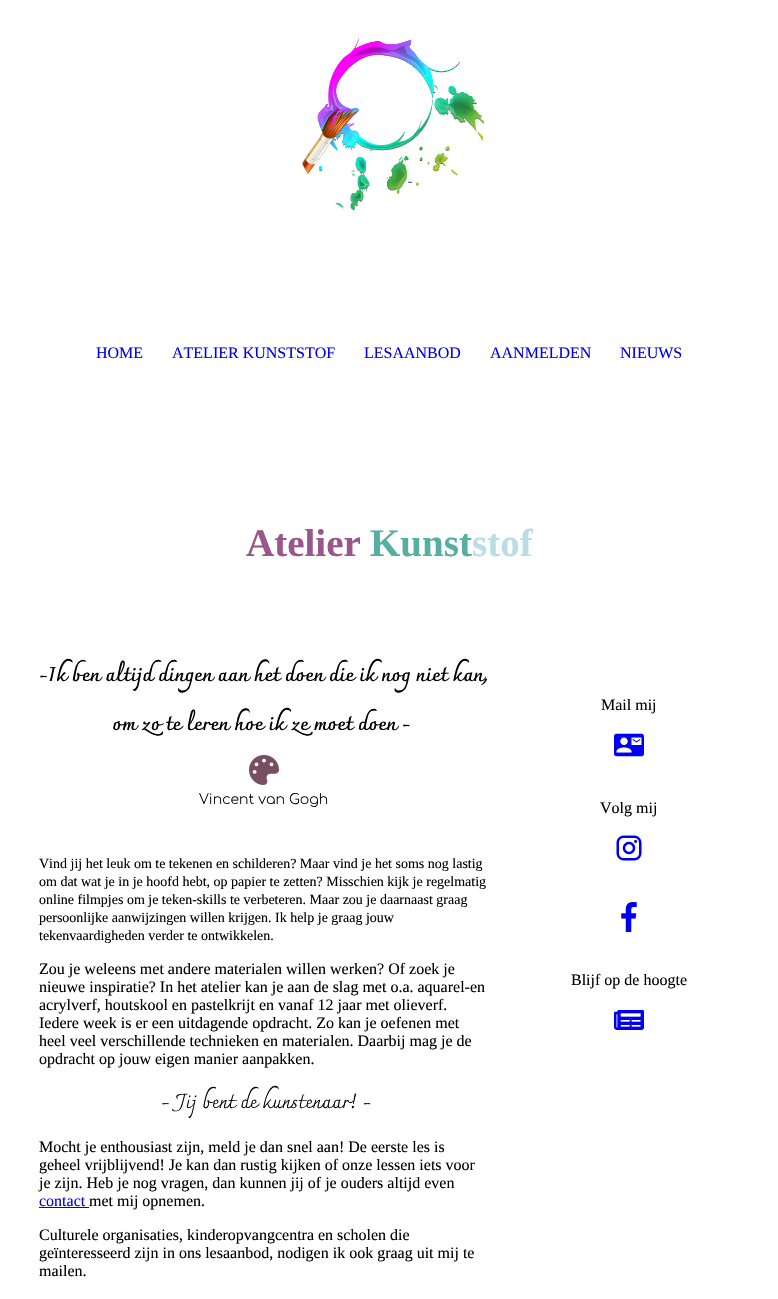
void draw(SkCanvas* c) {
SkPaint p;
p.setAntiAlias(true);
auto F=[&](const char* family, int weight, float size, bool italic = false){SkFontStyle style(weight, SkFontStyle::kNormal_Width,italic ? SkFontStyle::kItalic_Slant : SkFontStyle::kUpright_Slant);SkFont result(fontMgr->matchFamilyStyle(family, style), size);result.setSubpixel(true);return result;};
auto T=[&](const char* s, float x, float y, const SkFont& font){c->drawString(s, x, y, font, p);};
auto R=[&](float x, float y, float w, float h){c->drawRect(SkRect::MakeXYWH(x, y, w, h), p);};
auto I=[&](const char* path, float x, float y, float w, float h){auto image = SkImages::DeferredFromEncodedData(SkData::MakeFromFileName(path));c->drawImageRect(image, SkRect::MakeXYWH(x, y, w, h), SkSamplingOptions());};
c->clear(0xffffffff);
I("1.png",302,38,182,172);
auto f1 = F("Liberation Serif",400,16);
p.setColor(0xff0000ee);
T("HOME",96,358,f1);
T("ATELIER KUNSTSTOF",172,358,f1);
T("LESAANBOD",364,358,f1);
T("AANMELDEN",490,358,f1);
T("NIEUWS",620,358,f1);
auto f2 = F("Liberation Serif",700,39);
p.setColor(0xff9a558c);
T("Atelier",246,556,f2);
p.setColor(0xff57aea2);
T("Kunst",370,556,f2);
p.setColor(0xffbadde4);
T("stof",472,556,f2);
auto f3 = F("Charmonman",700,20);
p.setColor(0xff000000);
T("-Ik ben altijd dingen aan het doen die ik nog niet kan,",39,681,f3);
T("om zo te leren hoe ik ze moet doen -",112,730,f3);
I("2.png",249,755,30,30);
auto f4 = F("Comfortaa",300,14);
T("Vincent van Gogh",199,804,f4);
auto f5 = F("Liberation Serif",400,14);
T("Vind jij het leuk om te tekenen en schilderen? Maar vind je het soms nog lastig",39,868,f5);
T("om dat wat je in je hoofd hebt, op papier te zetten? Misschien kijk je regelmatig",39,886,f5);
T("online filmpjes om je teken-skills te verbeteren. Maar zou je daarnaast graag",39,904,f5);
T("persoonlijke aanwijzingen willen krijgen. Ik help je graag jouw",39,922,f5);
T("tekenvaardigheden verder te ontwikkelen.",39,940,f5);
T("Zou je weleens met andere materialen willen werken? Of zoek je",39,974,f1);
T("nieuwe inspiratie? In het atelier kan je aan de slag met o.a. aquarel-en",39,992,f1);
T("acrylverf, houtskool en pastelkrijt en vanaf 12 jaar met olieverf.",39,1010,f1);
T("Iedere week is er een uitdagende opdracht. Zo kan je oefenen met",39,1028,f1);
T("heel veel verschillende technieken en materialen. Daarbij mag je de",39,1046,f1);
T("opdracht op jouw eigen manier aanpakken.",39,1064,f1);
auto f6 = F("Charmonman",400,20);
T("- Jij bent de kunstenaar! -",161,1108,f6);
T("Mocht je enthousiast zijn, meld je dan snel aan! De eerste les is",39,1152,f1);
T("geheel vrijblijvend! Je kan dan rustig kijken of onze lessen iets voor",39,1170,f1);
T("je zijn. Heb je nog vragen, dan kunnen jij of je ouders altijd even",39,1188,f1);
p.setColor(0xff0000ee);
T("contact",39,1206,f1);
R(39,1207,50,1);
p.setColor(0xff000000);
T("met mij opnemen.",89,1206,f1);
T("Culturele organisaties, kinderopvangcentra en scholen die",39,1240,f1);
T("geïnteresseerd zijn in ons lesaanbod, nodigen ik ook graag uit mij te",39,1258,f1);
T("mailen.",39,1276,f1);
T("Mail mij",601,710,f1);
I("3.png",614,733,30,24);
T("Volg mij",600,813,f1);
I("4.png",616,835,26,26);
I("5.png",621,902,16,30);
T("Blijf op de hoogte",571,985,f1);
I("6.png",614,1010,30,20);
}
